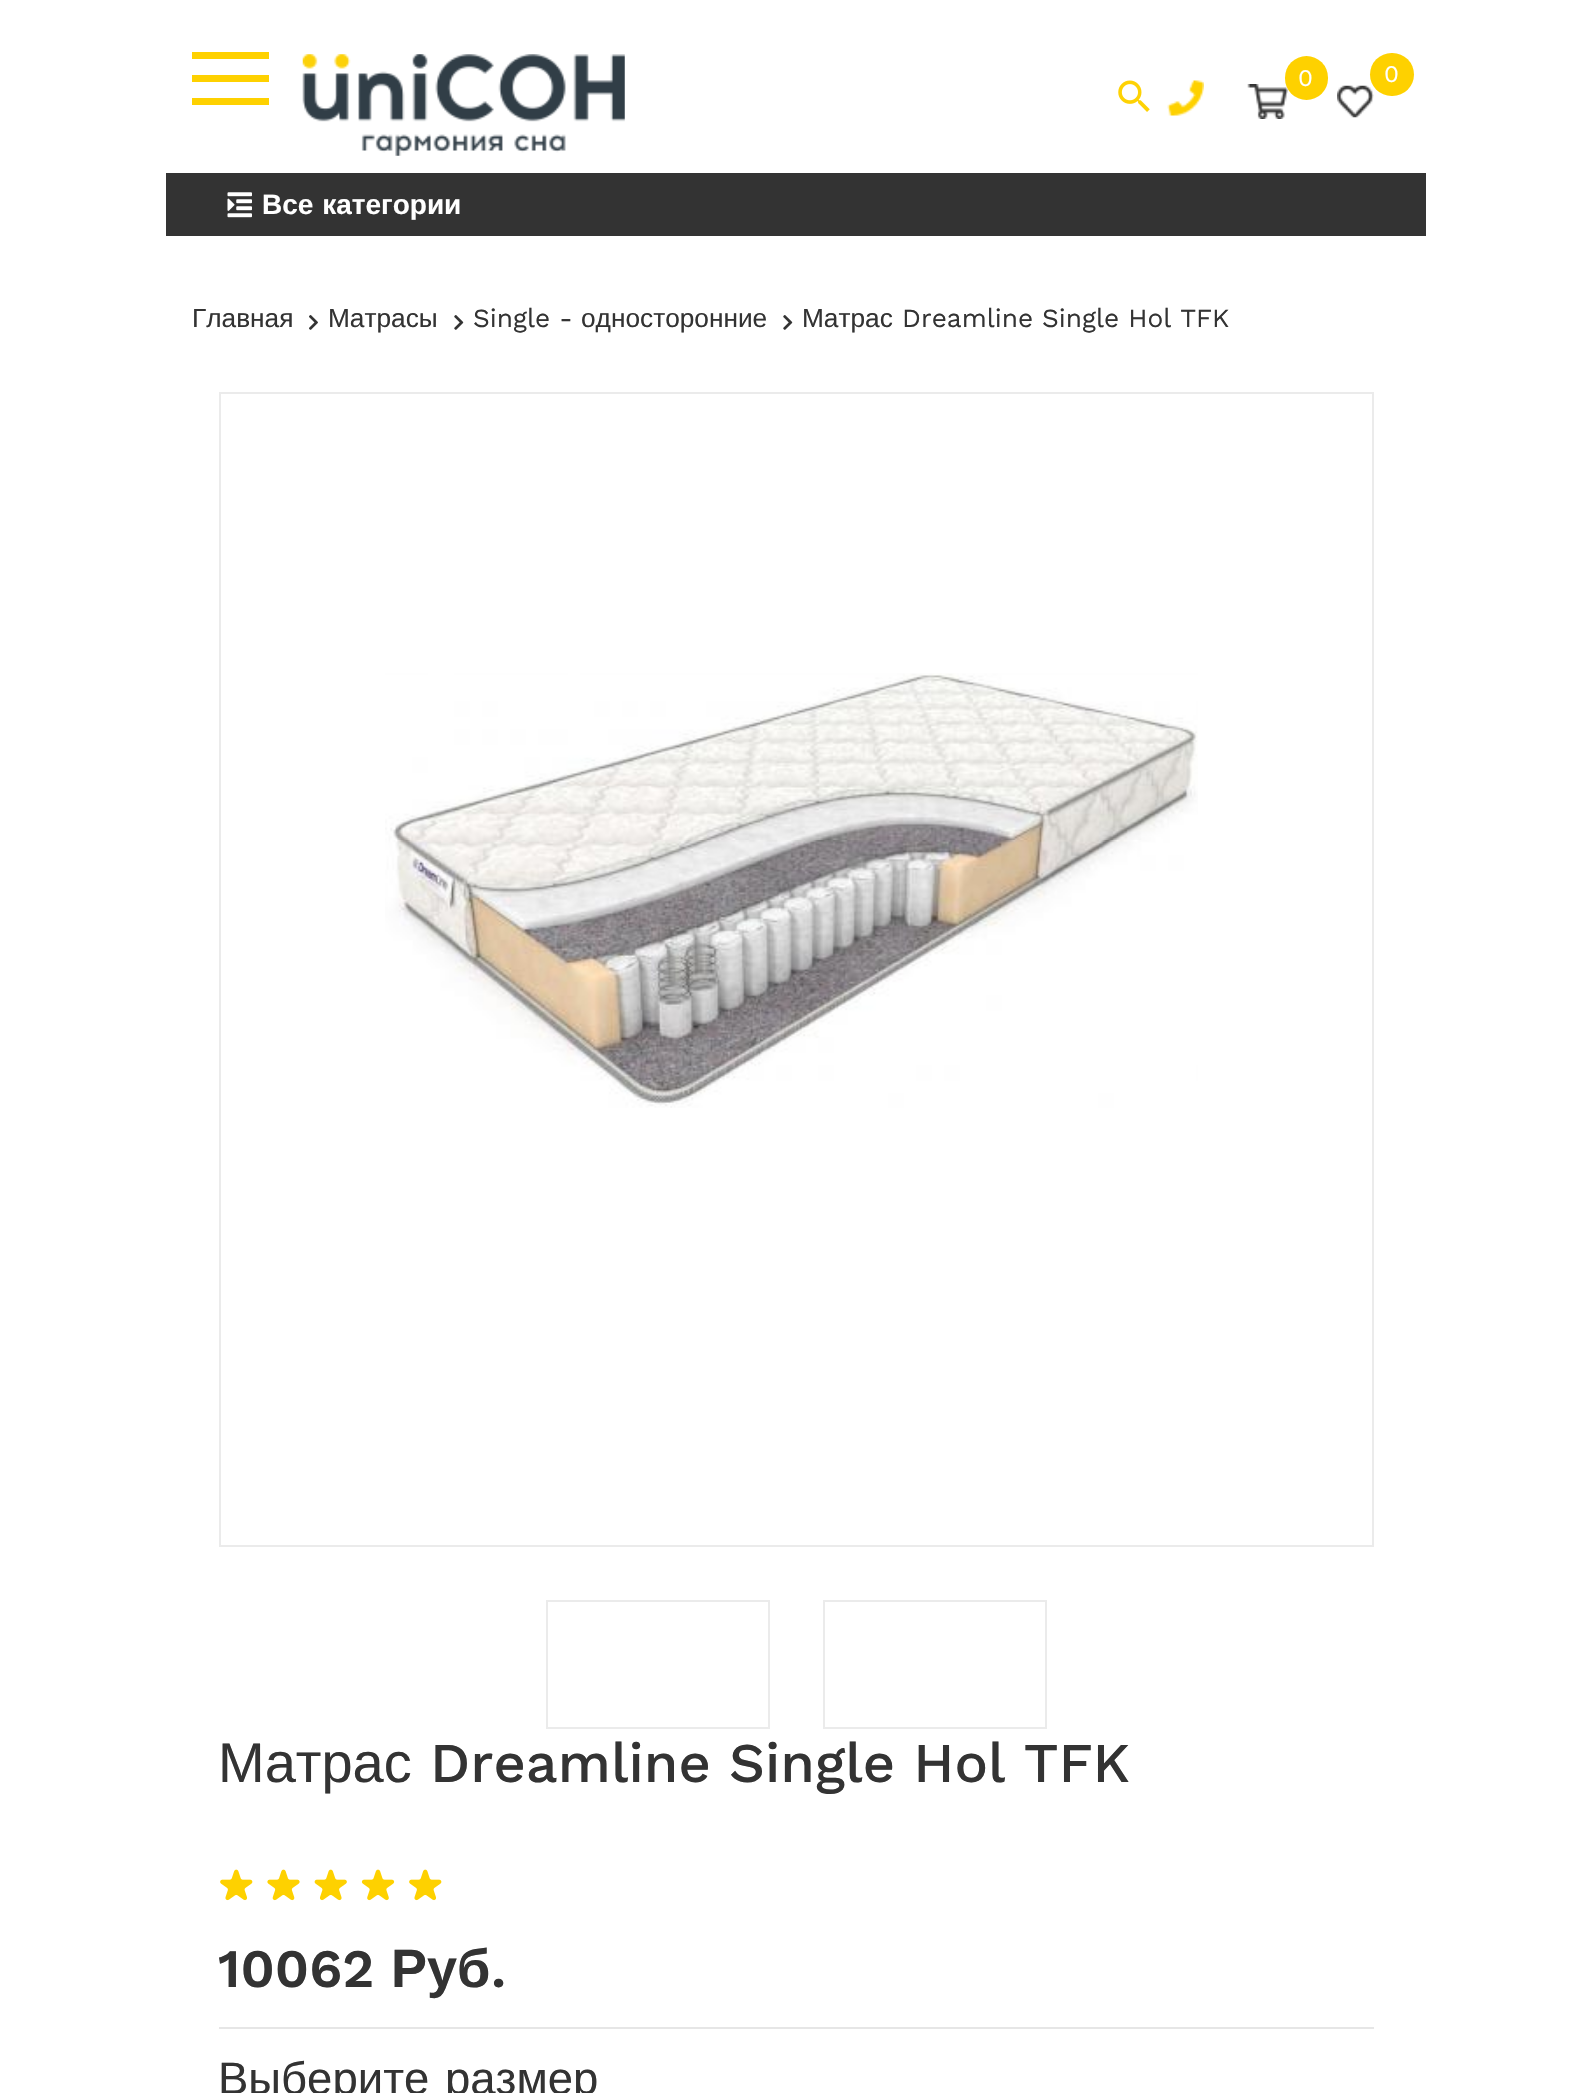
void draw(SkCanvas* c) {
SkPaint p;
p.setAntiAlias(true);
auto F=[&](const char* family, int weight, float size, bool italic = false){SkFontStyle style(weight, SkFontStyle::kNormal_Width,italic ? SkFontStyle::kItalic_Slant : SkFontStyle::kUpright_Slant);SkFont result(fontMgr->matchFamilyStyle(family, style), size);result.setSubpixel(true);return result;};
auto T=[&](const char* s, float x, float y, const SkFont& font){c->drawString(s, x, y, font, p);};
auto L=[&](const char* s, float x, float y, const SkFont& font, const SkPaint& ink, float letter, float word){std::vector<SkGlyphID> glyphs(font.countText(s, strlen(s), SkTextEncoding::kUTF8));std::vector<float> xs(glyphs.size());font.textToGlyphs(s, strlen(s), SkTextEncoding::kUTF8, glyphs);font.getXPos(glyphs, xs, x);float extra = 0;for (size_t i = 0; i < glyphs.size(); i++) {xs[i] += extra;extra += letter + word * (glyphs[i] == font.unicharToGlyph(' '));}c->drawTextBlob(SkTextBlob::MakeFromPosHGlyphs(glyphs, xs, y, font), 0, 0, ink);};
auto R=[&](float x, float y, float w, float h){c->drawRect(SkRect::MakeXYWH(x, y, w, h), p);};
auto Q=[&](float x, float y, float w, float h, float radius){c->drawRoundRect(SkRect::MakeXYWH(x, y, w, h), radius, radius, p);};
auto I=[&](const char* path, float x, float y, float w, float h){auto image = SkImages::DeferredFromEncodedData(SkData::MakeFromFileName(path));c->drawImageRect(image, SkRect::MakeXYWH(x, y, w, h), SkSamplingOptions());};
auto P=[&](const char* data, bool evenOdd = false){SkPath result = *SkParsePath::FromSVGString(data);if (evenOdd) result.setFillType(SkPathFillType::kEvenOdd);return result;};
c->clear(0xffffffff);
p.setColor(0xfffed100);
c->drawPath(P("M192 82v-7h77v7zm0-23v-7h77v7zm0 46v-7h77v7z"),p);
I("1.png",302,54,323,102);
I("2.png",1247,84,41,35);
Q(1285,56,43,44,21.5);
auto f1 = F("Work Sans",400,24);
p.setColor(0xffffffff);
T("0",1298,86,f1);
I("3.png",1337,85,37,33);
p.setColor(0xfffed100);
Q(1370,53,44,43,21.5);
p.setColor(0xffffffff);
T("0",1384,82,f1);
I("4.png",1118,80,32,32);
I("5.png",1167,80,37,36);
p.setColor(0xff333333);
R(166,173,1260,63);
I("6.png",227,192,25,26);
auto f2 = F("Liberation Sans",700,28);
p.setColor(0xffffffff);
L("Все категории",262,214,f2,p,0,1);
auto f3 = F("Liberation Sans",400,26.25);
p.setColor(0xff333333);
T("Главная",192,327,f3);
I("7.png",309,315,9,15);
T("Матрасы",328,327,f3);
I("8.png",454,315,10,15);
auto f4 = F("Work Sans",400,26.25);
T("Single -",473,327,f4);
T("односторонние",581,327,f3);
I("8.png",783,315,10,15);
T("Матрас",802,327,f3);
T("Dreamline Single Hol TFK",902,327,f4);
p.setStroke(true);
p.setStrokeWidth(2);
p.setColor(0xffebebeb);
c->drawRect(SkRect::MakeXYWH(220,393,1153,1153),p);
I("9.png",385,673,813,435);
c->drawRect(SkRect::MakeXYWH(547,1601,222,127),p);
c->drawRect(SkRect::MakeXYWH(824,1601,222,127),p);
auto f5 = F("Liberation Sans",400,56);
p.setStroke(false);
p.setColor(0xff333333);
T("Матрас",218,1782,f5);
auto f6 = F("Work Sans",500,56);
T("Dreamline Single Hol TFK",430,1782,f6);
I("10.png",220,1869,33,32);
I("11.png",267,1869,33,32);
I("12.png",314,1869,33,32);
I("13.png",361,1869,34,32);
I("10.png",409,1869,33,32);
auto f7 = F("Work Sans",600,54);
T("10062",218,1987,f7);
auto f8 = F("Liberation Sans",700,54);
T("Руб",391,1987,f8);
T(".",491,1987,f7);
p.setColor(0xffe6e6e6);
R(219,2027,1155,2);
auto f9 = F("Liberation Sans",400,45.5);
p.setColor(0xff333333);
L("Выберите размер",218,2094,f9,p,0,3);
}
